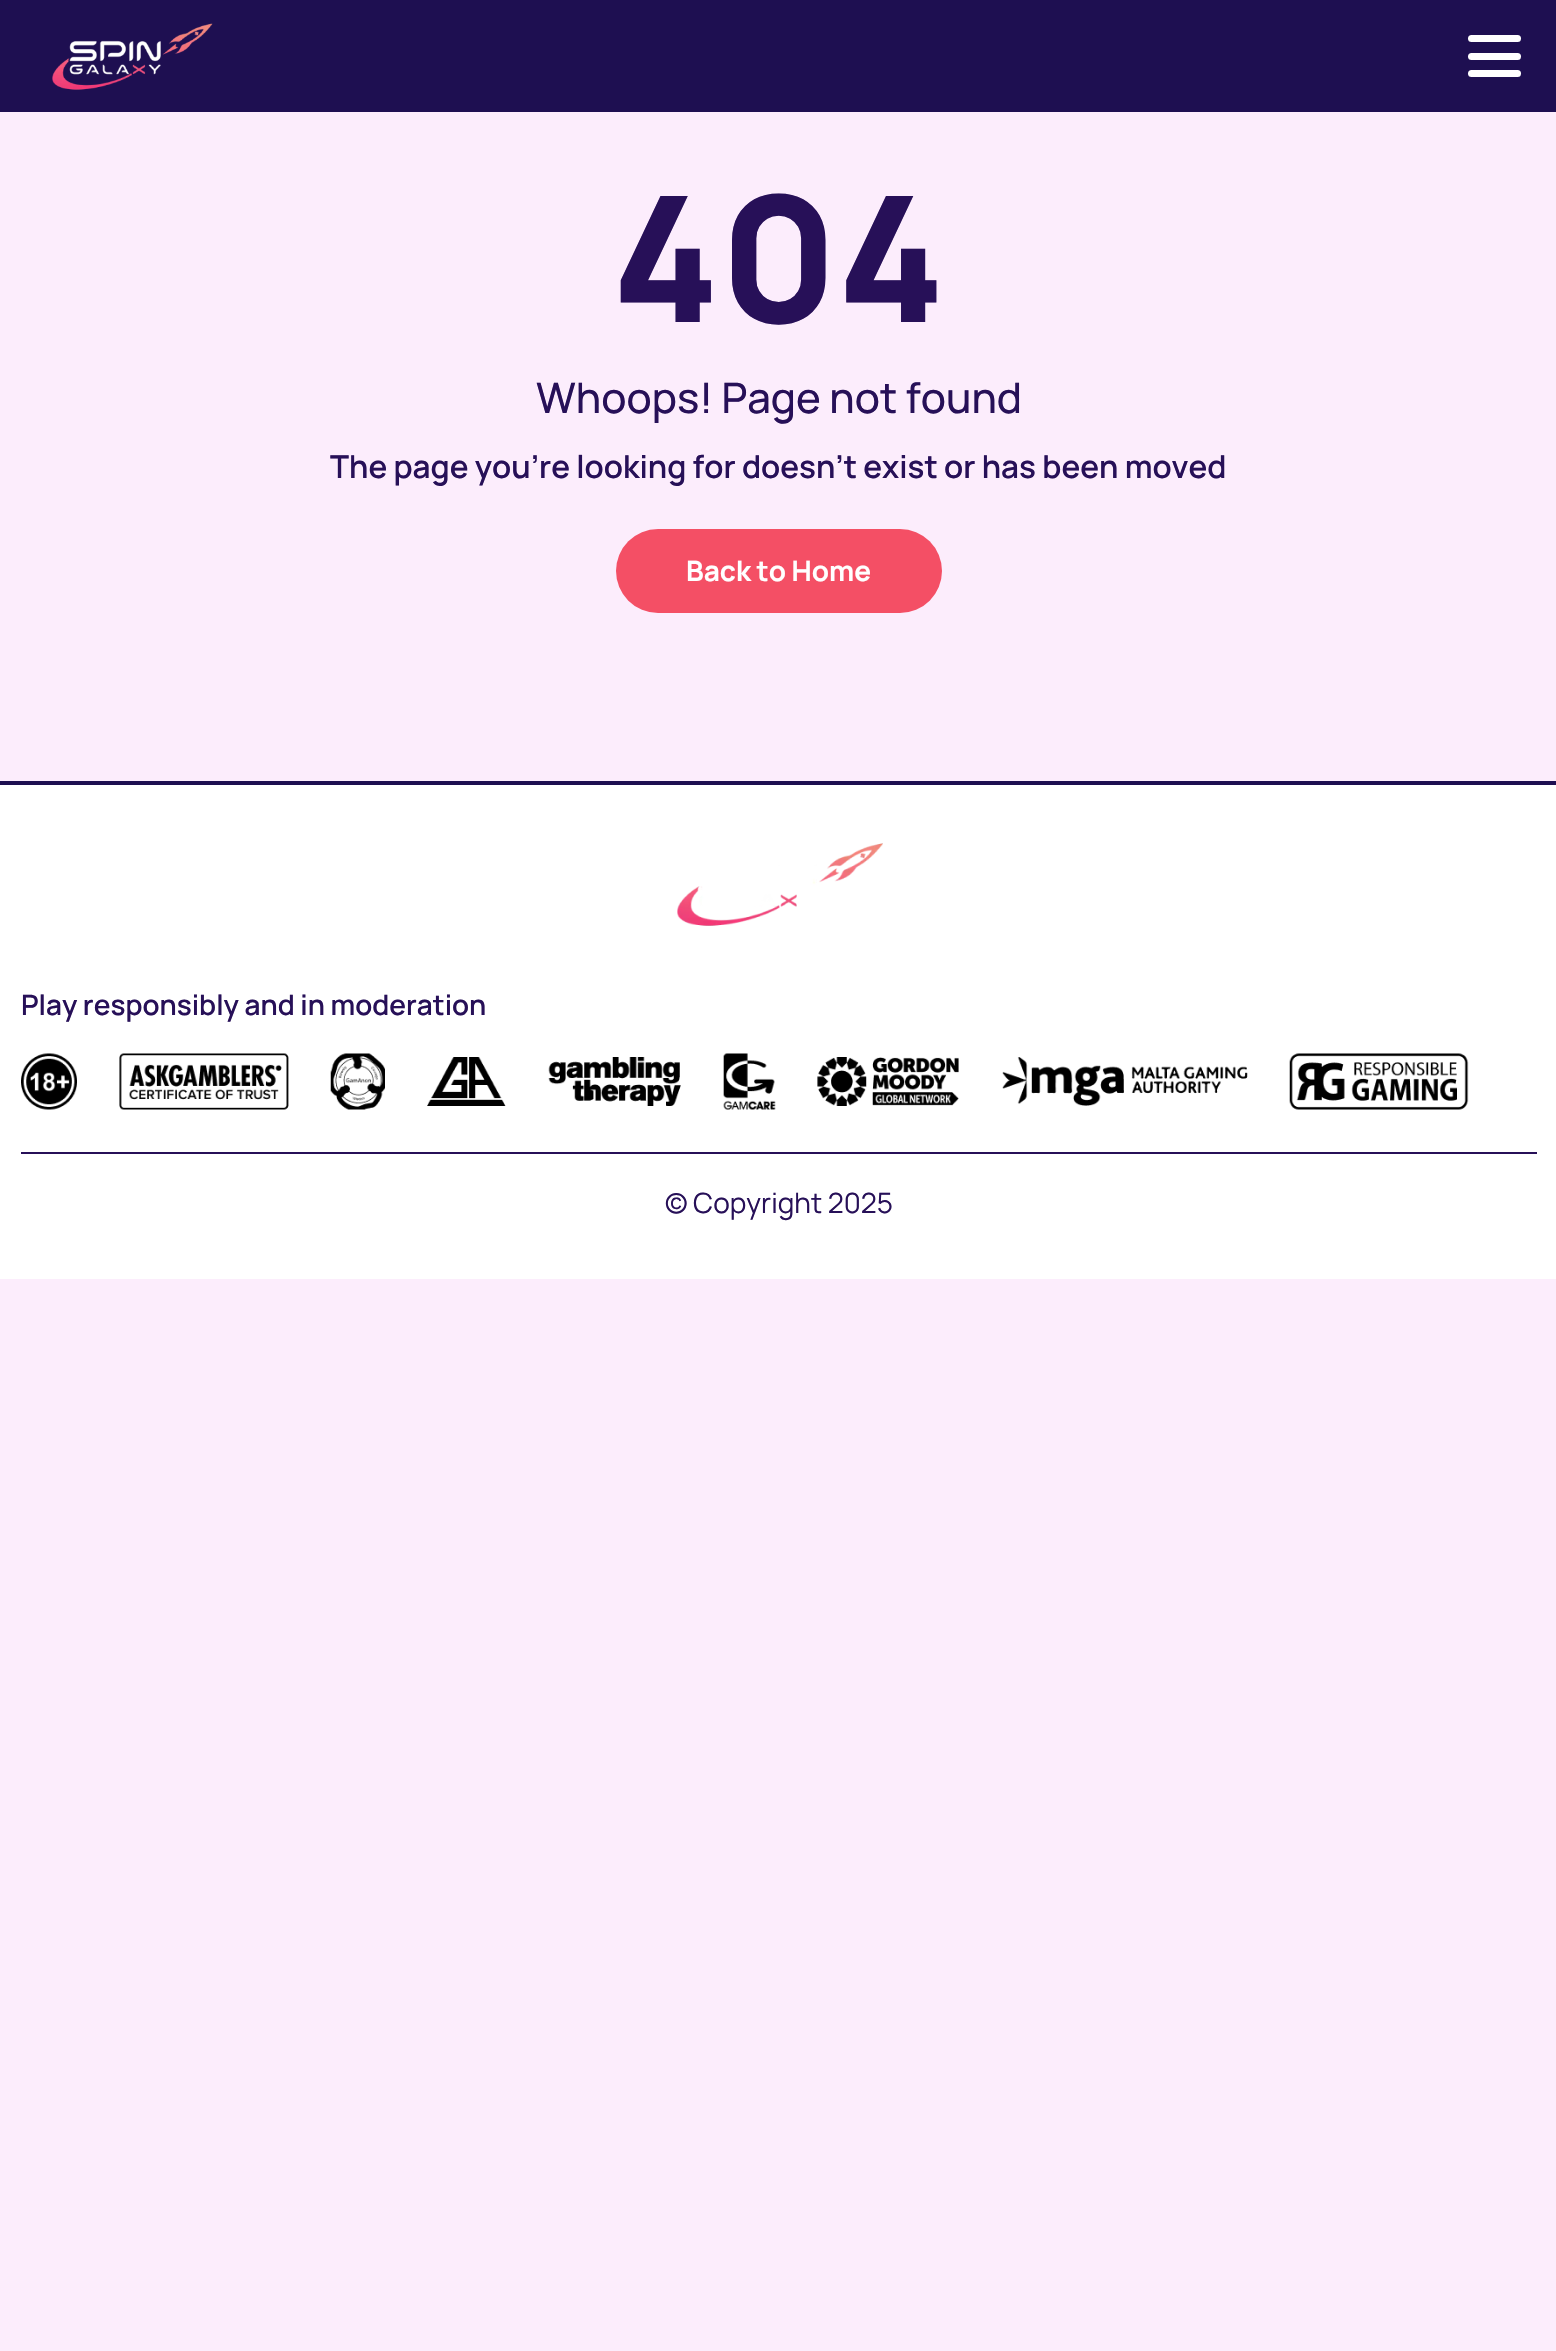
void draw(SkCanvas* c) {
SkPaint p;
p.setAntiAlias(true);
auto F=[&](const char* family, int weight, float size, bool italic = false){SkFontStyle style(weight, SkFontStyle::kNormal_Width,italic ? SkFontStyle::kItalic_Slant : SkFontStyle::kUpright_Slant);SkFont result(fontMgr->matchFamilyStyle(family, style), size);result.setSubpixel(true);return result;};
auto T=[&](const char* s, float x, float y, const SkFont& font){c->drawString(s, x, y, font, p);};
auto R=[&](float x, float y, float w, float h){c->drawRect(SkRect::MakeXYWH(x, y, w, h), p);};
auto Q=[&](float x, float y, float w, float h, float radius){c->drawRoundRect(SkRect::MakeXYWH(x, y, w, h), radius, radius, p);};
auto I=[&](const char* path, float x, float y, float w, float h){auto image = SkImages::DeferredFromEncodedData(SkData::MakeFromFileName(path));c->drawImageRect(image, SkRect::MakeXYWH(x, y, w, h), SkSamplingOptions());};
c->clear(0xfffcedfc);
p.setColor(0xff1e0f51);
R(0,0,1556,112);
I("1.png",52,23,161,67);
p.setColor(0xffffffff);
Q(1468,53,53,7,3.5);
Q(1468,35,53,7,3.5);
Q(1468,70,53,7,3.5);
auto f1 = F("Manrope",800,175);
p.setColor(0xff271058);
T("404",612,322,f1);
auto f2 = F("Manrope",500,42);
T("Whoops! Page not found",536,413,f2);
auto f3 = F("Manrope",600,31.5);
T("The page you’re looking for doesn’t exist or has been moved",330,478,f3);
p.setColor(0xfff44f65);
Q(616,529,326,84,42);
auto f4 = F("Manrope",700,28);
p.setColor(0xffffffff);
T("Back to Home",686,581,f4);
R(0,785,1556,494);
p.setColor(0xff1e0f51);
R(0,781,1556,4);
I("2.png",677,843,206,83);
auto f5 = F("Manrope",600,28);
p.setColor(0xff271058);
T("Play responsibly and in moderation",21,1015,f5);
R(21,1152,1516,2);
I("3.png",21,1053,56,57);
I("4.png",119,1053,170,57);
I("5.png",330,1053,55,57);
I("6.png",427,1057,79,49);
I("7.png",548,1057,133,49);
I("8.png",723,1053,53,57);
I("9.png",817,1057,142,49);
I("10.png",1002,1057,246,49);
I("11.png",1289,1053,180,57);
auto f6 = F("Manrope",400,28);
T("© Copyright 2025",665,1213,f6);
}
